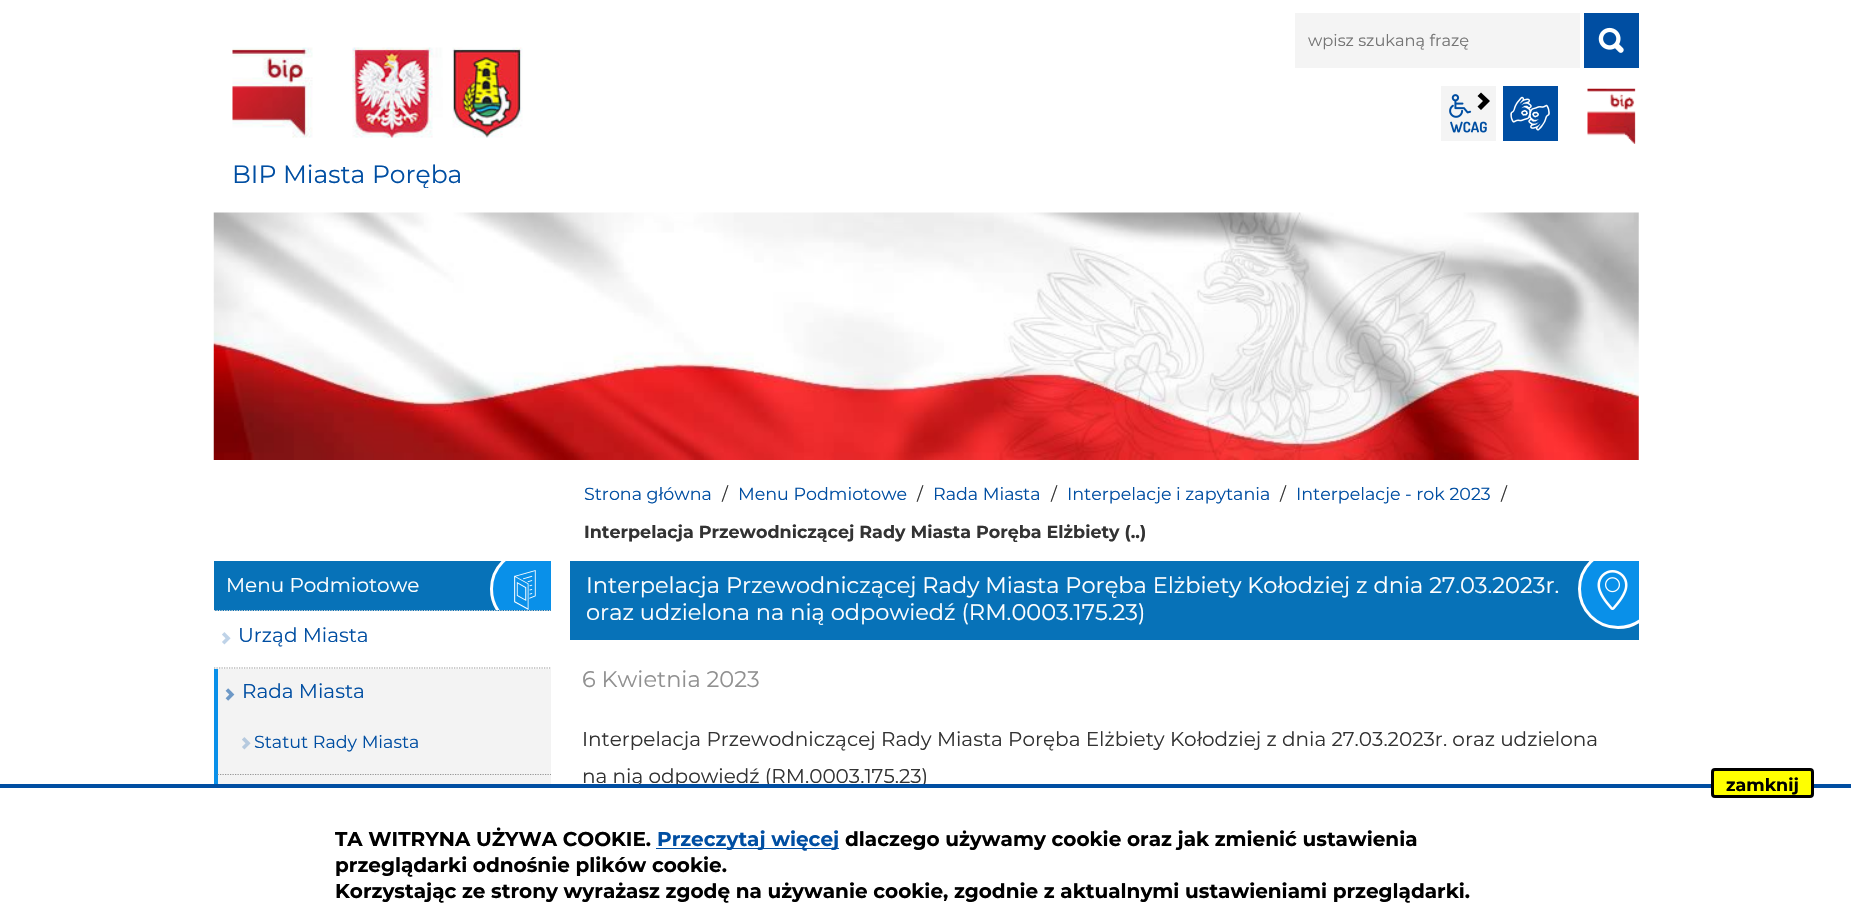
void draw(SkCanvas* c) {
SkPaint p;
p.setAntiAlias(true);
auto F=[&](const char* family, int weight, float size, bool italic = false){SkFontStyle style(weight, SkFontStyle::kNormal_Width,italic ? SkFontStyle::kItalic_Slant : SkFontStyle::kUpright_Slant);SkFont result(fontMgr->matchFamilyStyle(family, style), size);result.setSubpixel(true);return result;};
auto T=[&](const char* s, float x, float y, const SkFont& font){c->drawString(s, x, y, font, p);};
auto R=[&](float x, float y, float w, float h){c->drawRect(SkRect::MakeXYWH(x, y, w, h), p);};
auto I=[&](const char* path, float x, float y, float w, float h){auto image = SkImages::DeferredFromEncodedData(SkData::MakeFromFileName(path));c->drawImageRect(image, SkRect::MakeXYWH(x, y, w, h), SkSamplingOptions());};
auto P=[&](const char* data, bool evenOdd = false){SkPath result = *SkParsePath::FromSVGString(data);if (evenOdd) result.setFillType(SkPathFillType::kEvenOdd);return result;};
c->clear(0xffffffff);
p.setColor(0xfff4f4f4);
R(1295,13,285,55);
auto f1 = F("Montserrat",400,16.25);
p.setColor(0xff757575);
T("wpisz szukaną frazę",1308,46,f1);
p.setColor(0xff004ea2);
R(1584,13,55,55);
I("1.png",1598,27,26,26);
p.setColor(0xfff4f4f4);
R(1441,86,55,55);
I("2.png",1449,94,38,39);
p.setColor(0xff000000);
c->drawPath(P("M1483 101l-5.5-5l3.5-3.5l9 8.5l-9 9l-3.5-3.5z"),p);
p.setColor(0xff004ea2);
R(1503,86,55,55);
I("3.png",1510,96,40,35);
I("4.png",1587,88,49,56);
I("5.png",232,47,291,91);
c->save();
c->clipRect(SkRect::MakeXYWH(214,19,575,169));
auto f2 = F("Montserrat",400,25);
T("BIP Miasta Poręba",232,183,f2);
c->restore();
I("6.png",213,212,1426,248);
auto f3 = F("Montserrat",400,17.5);
T("Strona główna",584,500,f3);
p.setColor(0xff333333);
T("/",722,500,f3);
p.setColor(0xff004ea2);
T("Menu Podmiotowe",738,500,f3);
p.setColor(0xff333333);
T("/",917,500,f3);
p.setColor(0xff004ea2);
T("Rada Miasta",933,500,f3);
p.setColor(0xff333333);
T("/",1051,500,f3);
p.setColor(0xff004ea2);
T("Interpelacje i zapytania",1067,500,f3);
p.setColor(0xff333333);
T("/",1280,500,f3);
p.setColor(0xff004ea2);
T("Interpelacje - rok 2023",1296,500,f3);
p.setColor(0xff333333);
T("/",1501,500,f3);
auto f4 = F("Montserrat",700,17.5);
T("Interpelacja Przewodniczącej Rady Miasta Poręba Elżbiety (..)",584,538,f4);
p.setColor(0xff0772b8);
R(214,561,337,50);
p.setStroke(true);
p.setStrokeWidth(1.2);
p.setColor(0xffdddddd);
p.setPathEffect(SkDashPathEffect::Make({{1.25f,1.25f}}, 0));
c->drawPath(P("M214 610.5h337"),p);
p.setPathEffect(nullptr);
auto f5 = F("Montserrat",400,20);
p.setStroke(false);
p.setColor(0xffffffff);
T("Menu Podmiotowe",226,592,f5);
c->save();
c->clipRect(SkRect::MakeXYWH(214,561,337,49));
p.setColor(0xff0990e9);
c->drawCircle(530,589,38.5,p);
p.setStroke(true);
p.setStrokeWidth(3);
p.setColor(0xffffffff);
c->drawCircle(530,589,38.5,p);
c->restore();
I("7.png",514,570,22,40);
p.setStrokeWidth(1.2);
p.setColor(0xff959595);
p.setPathEffect(SkDashPathEffect::Make({{1.25f,1.25f}}, 0));
c->drawPath(P("M214 668h337"),p);
p.setPathEffect(nullptr);
I("8.png",222,632,9,13);
p.setStroke(false);
p.setColor(0xff004ea2);
T("Urząd Miasta",238,642,f5);
p.setColor(0xfff3f3f3);
R(218,669,333,115);
p.setColor(0xff0990e9);
c->drawPath(P("M214 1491v-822h4v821z"),p);
I("9.png",225,688,10,13);
p.setColor(0xff004ea2);
T("Rada Miasta",242,698,f5);
p.setStroke(true);
p.setColor(0xff959595);
p.setPathEffect(SkDashPathEffect::Make({{1.25f,1.25f}}, 0));
c->drawPath(P("M217.5 774.5h333.5"),p);
p.setPathEffect(nullptr);
I("10.png",242,737,9,13);
p.setStroke(false);
p.setColor(0xff004ea2);
T("Statut Rady Miasta",254,748,f3);
p.setColor(0xff0772b8);
R(570,561,1069,79);
auto f6 = F("Montserrat",400,22.5);
p.setColor(0xffffffff);
T("Interpelacja Przewodniczącej Rady Miasta Poręba Elżbiety Kołodziej z dnia 27.03.2023r.",586,593,f6);
c->save();
c->clipRect(SkRect::MakeXYWH(570,561,1069,79));
p.setColor(0xff0990e9);
c->drawCircle(1618,589,38.5,p);
p.setStroke(true);
p.setStrokeWidth(3);
p.setColor(0xffffffff);
c->drawCircle(1618,589,38.5,p);
c->restore();
I("11.png",1597,570,31,40);
p.setStroke(false);
T("oraz udzielona na nią odpowiedź (RM.0003.175.23)",586,620,f6);
p.setColor(0xff909090);
T("6 Kwietnia 2023",582,687,f6);
p.setColor(0xff333333);
T("Interpelacja Przewodniczącej Rady Miasta Poręba Elżbiety Kołodziej z dnia 27.03.2023r. oraz udzielona",582,746,f5);
T("na nią odpowiedź (RM.0003.175.23)",582,783,f5);
p.setColor(0xffffffff);
R(214,788,4,135);
p.setColor(0xff004ea2);
R(0,784,1851,4);
p.setColor(0xffffff00);
c->drawRoundRect(SkRect::MakeXYWH(1712.5,769.5,100,27),2.5,2.5,p);
p.setStroke(true);
p.setColor(0xff000000);
c->drawRoundRect(SkRect::MakeXYWH(1712.5,769.5,100,27),2.5,2.5,p);
p.setStroke(false);
T("zamknij",1726,791,f4);
auto f7 = F("Montserrat",700,20);
T("TA WITRYNA UŻYWA COOKIE.",335,846,f7);
p.setColor(0xff004ea2);
R(656,848,183,1);
T("Przeczytaj więcej",657,846,f7);
p.setColor(0xff000000);
T("dlaczego używamy cookie oraz jak zmienić ustawienia",845,846,f7);
T("przeglądarki odnośnie plików cookie.",335,872,f7);
T("Korzystając ze strony wyrażasz zgodę na używanie cookie, zgodnie z aktualnymi ustawieniami przeglądarki.",335,898,f7);
}
